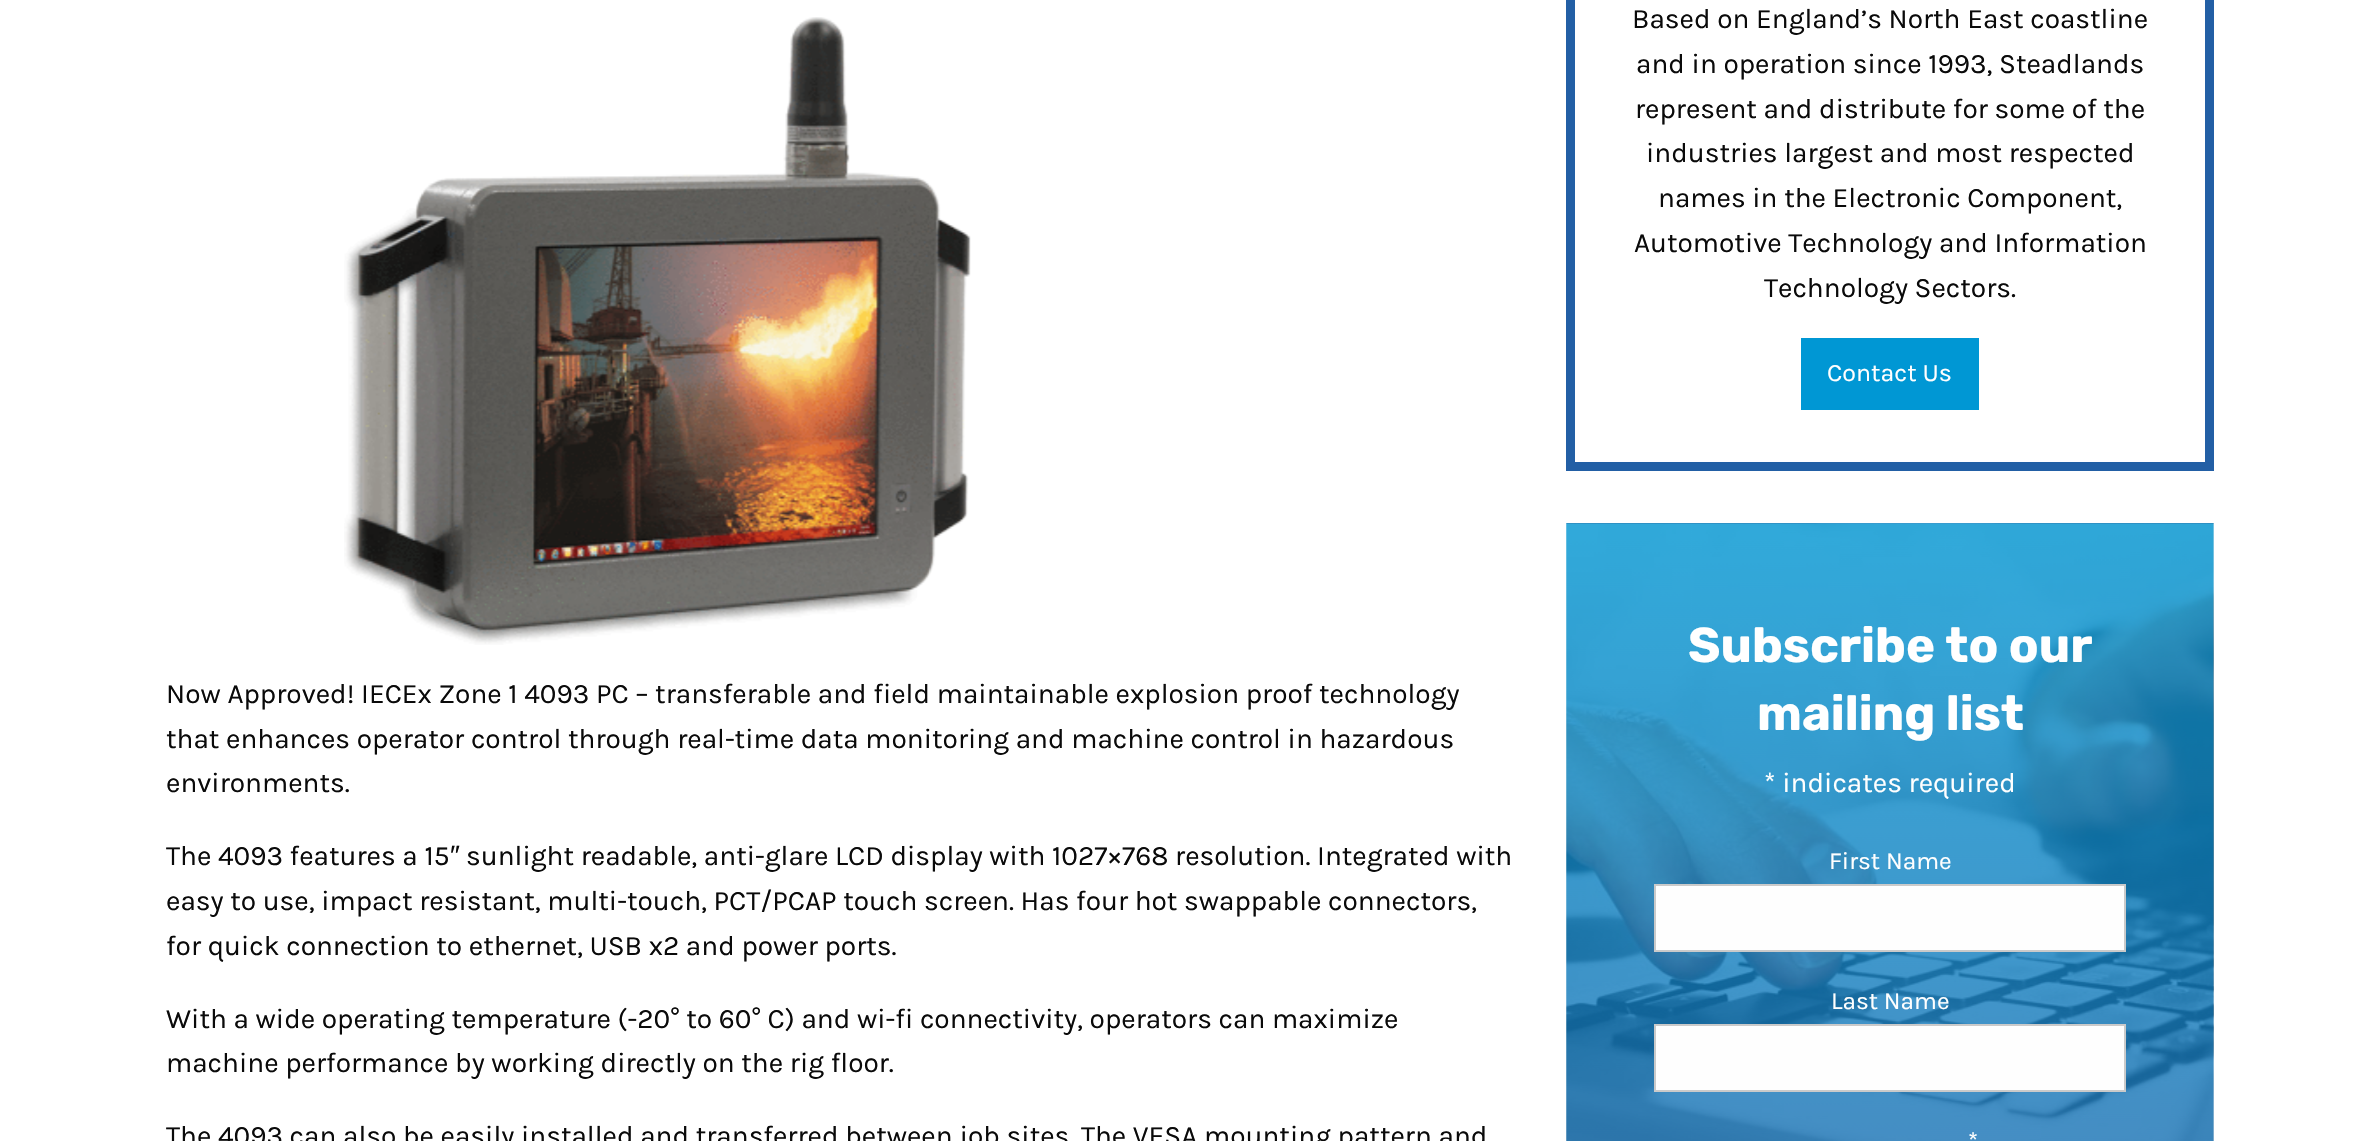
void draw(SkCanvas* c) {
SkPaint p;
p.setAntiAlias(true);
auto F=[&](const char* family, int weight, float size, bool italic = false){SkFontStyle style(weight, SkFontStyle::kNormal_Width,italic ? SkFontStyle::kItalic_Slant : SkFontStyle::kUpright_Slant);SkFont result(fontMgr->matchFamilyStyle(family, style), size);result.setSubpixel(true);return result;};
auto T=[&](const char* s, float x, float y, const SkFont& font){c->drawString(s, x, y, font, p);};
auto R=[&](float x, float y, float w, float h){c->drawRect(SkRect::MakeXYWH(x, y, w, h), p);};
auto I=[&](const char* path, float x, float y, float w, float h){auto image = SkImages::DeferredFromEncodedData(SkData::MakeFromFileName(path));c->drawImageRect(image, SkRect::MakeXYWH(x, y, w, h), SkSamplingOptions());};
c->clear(0xffffffff);
I("1.png",344,17,627,628);
auto f1 = F("Karla",400,28);
p.setColor(0xff0a0a0a);
T("Now Approved! IECEx Zone 1 4093 PC – transferable and field maintainable explosion proof technology",166,703,f1);
T("that enhances operator control through real-time data monitoring and machine control in hazardous",166,748,f1);
T("environments.",166,792,f1);
T("The 4093 features a 15",166,865,f1);
auto f2 = F("Liberation Sans",400,28);
T("″",450,865,f2);
T("sunlight readable, anti-glare LCD display with 1027×768 resolution. Integrated with",466,865,f1);
T("easy to use, impact resistant, multi-touch, PCT/PCAP touch screen. Has four hot swappable connectors,",166,910,f1);
T("for quick connection to ethernet, USB x2 and power ports.",166,955,f1);
T("With a wide operating temperature (-20° to 60° C) and wi-fi connectivity, operators can maximize",166,1028,f1);
T("machine performance by working directly on the rig floor.",166,1072,f1);
T("The 4093 can also be easily installed and transferred between job sites. The VESA mounting pattern and",166,1145,f1);
p.setStroke(true);
p.setStrokeWidth(9);
p.setColor(0xff225fa5);
c->drawRect(SkRect::MakeXYWH(1570.5,-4.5,639,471),p);
p.setStroke(false);
p.setColor(0xff0a0a0a);
T("Based on England’s North East coastline",1632,28,f1);
T("and in operation since 1993, Steadlands",1636,73,f1);
T("represent and distribute for some of the",1635,118,f1);
T("industries largest and most respected",1646,162,f1);
T("names in the Electronic Component,",1658,207,f1);
T("Automotive Technology and Information",1634,252,f1);
T("Technology Sectors.",1764,297,f1);
p.setColor(0xff0097d4);
R(1801,338,178,72);
auto f3 = F("Karla",400,25);
p.setColor(0xffffffff);
T("Contact Us",1827,381,f3);
I("2.png",1566,523,648,618);
auto f4 = F("Rubik",300,49);
T("Subscribe to our",1688,662,f4);
T("mailing list",1757,730,f4);
T("* indicates required",1764,792,f1);
auto f5 = F("Karla",400,24.5);
T("First Name",1829,869,f5);
p.setColor(0xfffefefe);
c->drawRect(SkRect::MakeXYWH(1655,885,470,66),p);
p.setStroke(true);
p.setStrokeWidth(2);
p.setColor(0xffcacaca);
c->drawRect(SkRect::MakeXYWH(1655,885,470,66),p);
p.setStroke(false);
p.setColor(0xffffffff);
T("Last Name",1831,1009,f5);
p.setColor(0xfffefefe);
c->drawRect(SkRect::MakeXYWH(1655,1025,470,66),p);
p.setStroke(true);
p.setColor(0xffcacaca);
c->drawRect(SkRect::MakeXYWH(1655,1025,470,66),p);
p.setStroke(false);
p.setColor(0xffffffff);
T("*",1968,1149,f5);
}
